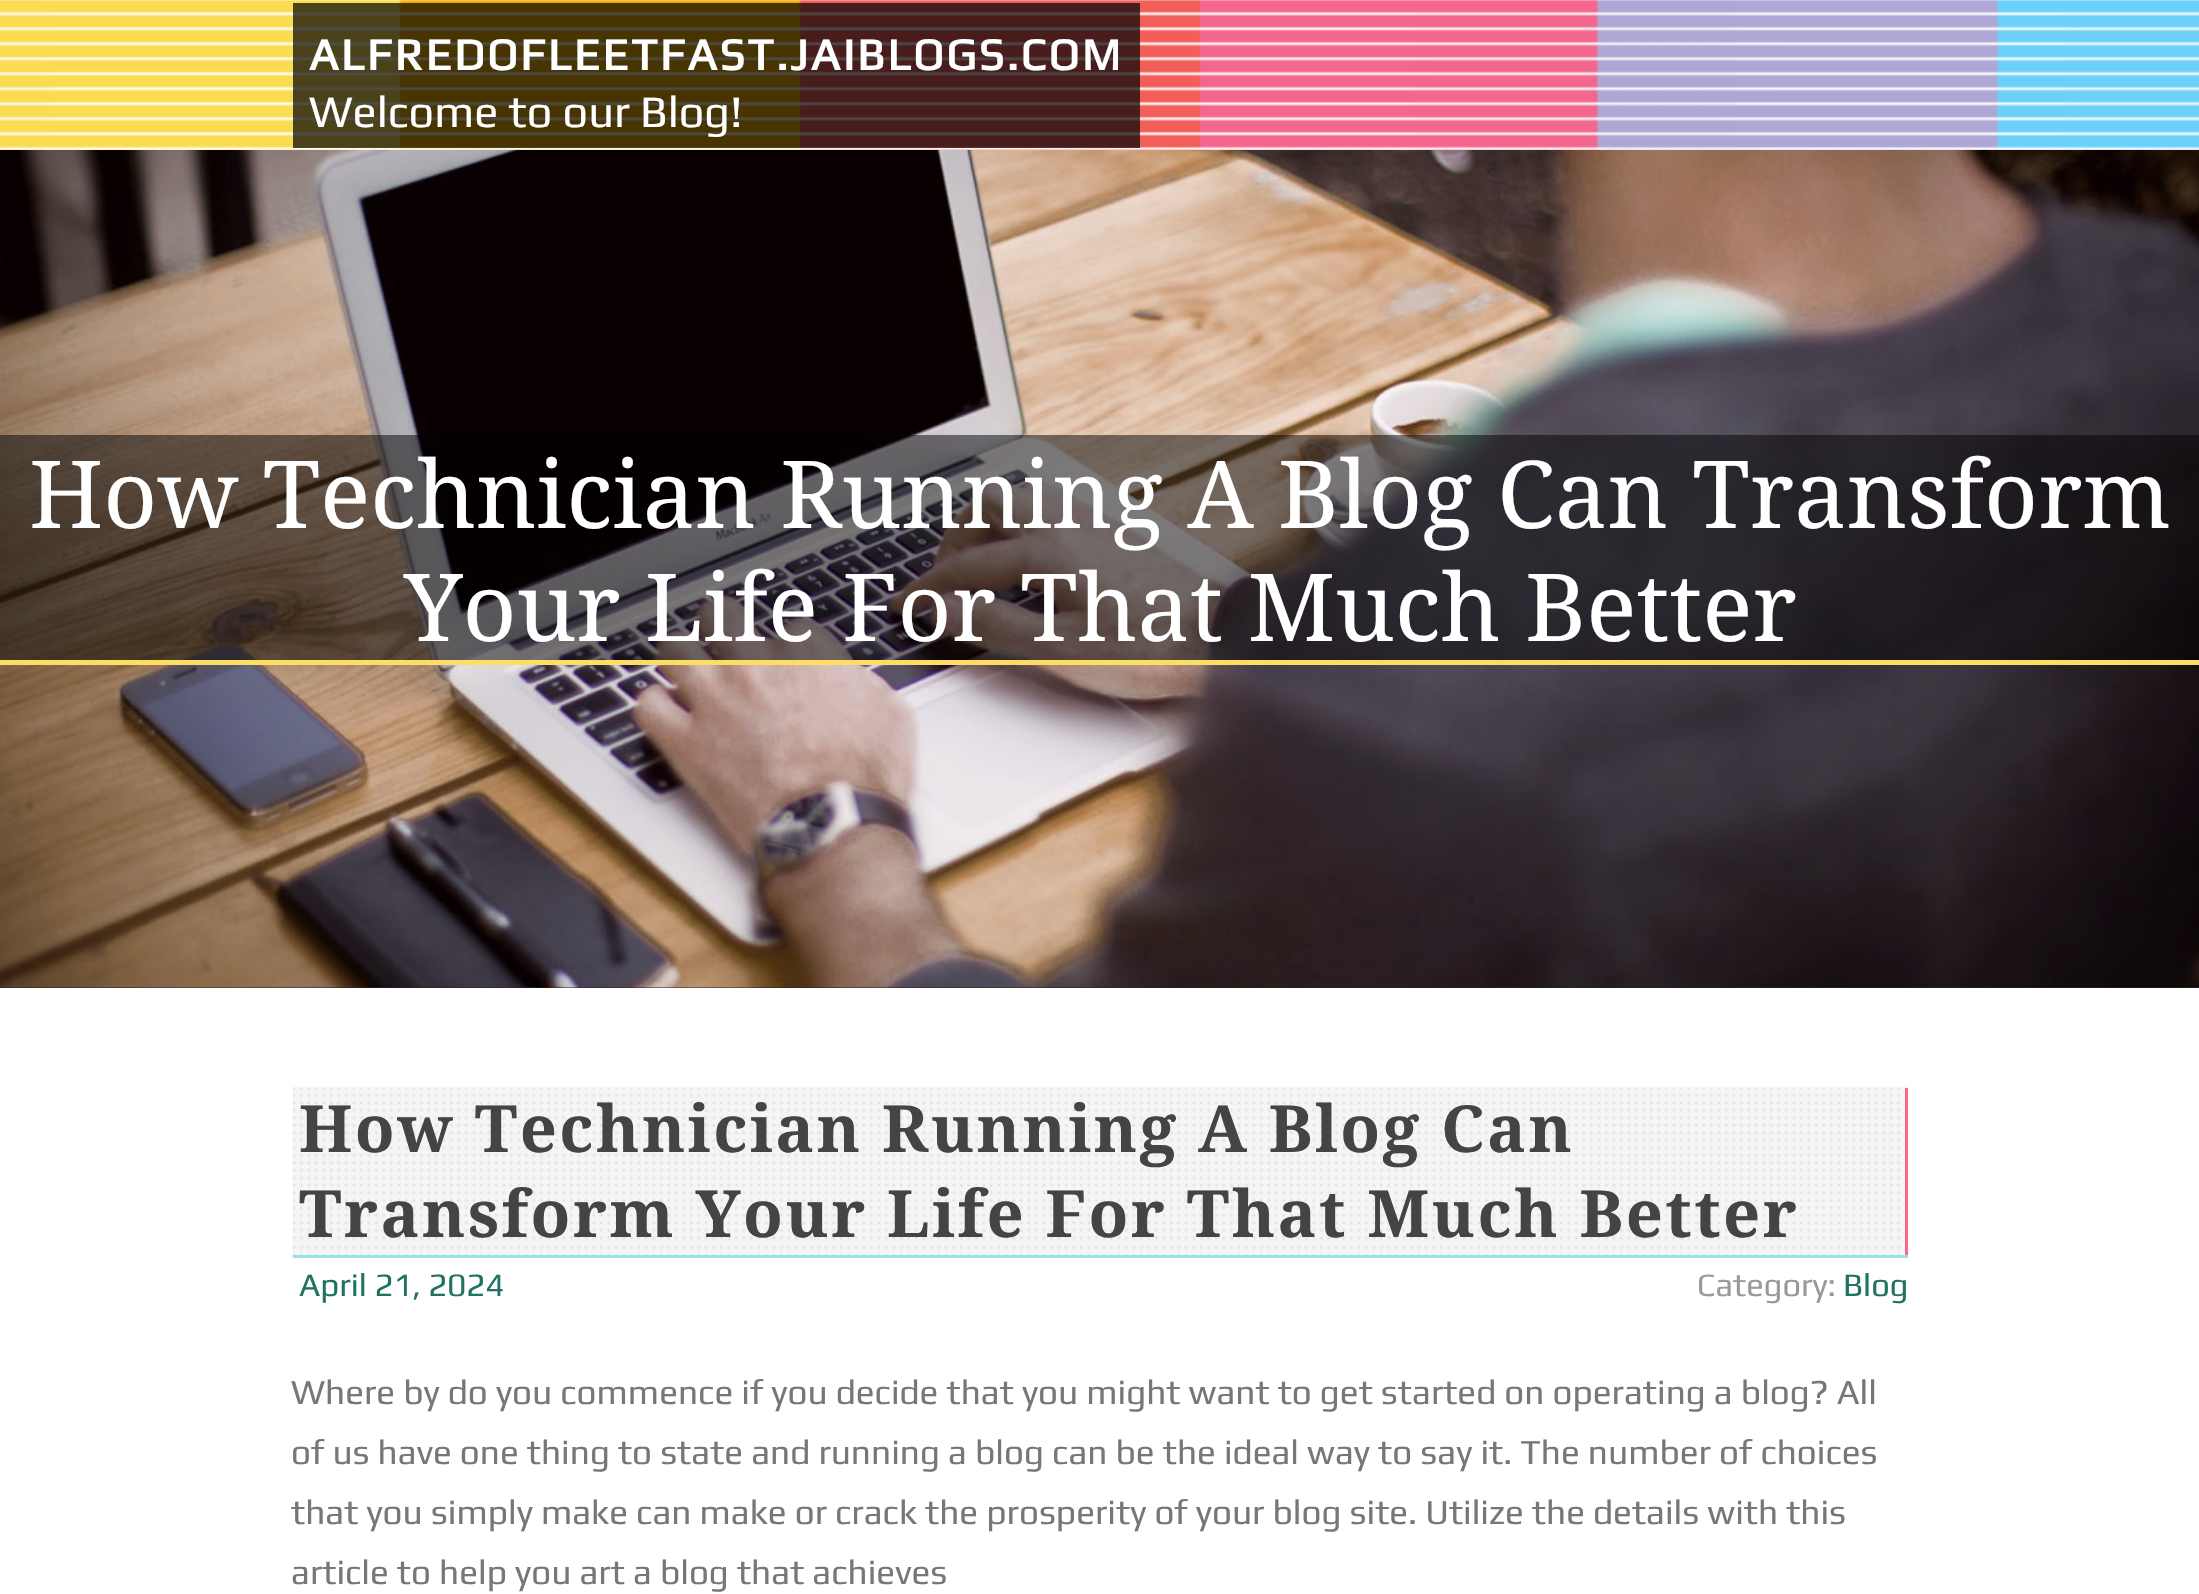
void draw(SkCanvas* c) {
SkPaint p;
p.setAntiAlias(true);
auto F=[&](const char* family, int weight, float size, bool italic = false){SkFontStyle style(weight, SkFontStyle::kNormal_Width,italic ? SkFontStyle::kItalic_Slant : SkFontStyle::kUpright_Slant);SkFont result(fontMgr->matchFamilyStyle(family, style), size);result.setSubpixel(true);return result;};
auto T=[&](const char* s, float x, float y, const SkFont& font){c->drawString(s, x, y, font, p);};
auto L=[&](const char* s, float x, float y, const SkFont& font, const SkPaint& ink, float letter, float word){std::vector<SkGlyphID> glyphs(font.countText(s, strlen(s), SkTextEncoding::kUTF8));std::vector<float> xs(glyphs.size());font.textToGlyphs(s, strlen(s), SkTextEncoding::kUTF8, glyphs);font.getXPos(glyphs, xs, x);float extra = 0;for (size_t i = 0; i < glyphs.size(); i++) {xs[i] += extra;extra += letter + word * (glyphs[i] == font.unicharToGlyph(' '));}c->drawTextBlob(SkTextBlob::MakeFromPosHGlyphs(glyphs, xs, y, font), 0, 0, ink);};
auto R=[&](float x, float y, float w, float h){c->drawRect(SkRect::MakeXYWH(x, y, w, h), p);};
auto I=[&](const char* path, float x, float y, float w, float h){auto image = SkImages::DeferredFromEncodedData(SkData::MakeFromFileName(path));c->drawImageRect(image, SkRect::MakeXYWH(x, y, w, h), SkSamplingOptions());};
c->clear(0xffffffff);
I("1.png",0,0,2199,150);
p.setColor(0xb3000000);
R(293,3,847,145);
auto f1 = F("Play",700,45);
p.setColor(0xffffffff);
L("ALFREDOFLEETFAST.JAIBLOGS.COM",309,70,f1,p,2.5,0);
auto f2 = F("Play",400,45);
T("Welcome to our Blog!",309,127,f2);
p.setColor(0xff292121);
R(0,987,2199,1);
I("2.png",0,150,2199,838);
p.setColor(0x80000000);
R(0,435,2199,225);
p.setColor(0xfffdde65);
R(0,660,2199,5);
auto f3 = F("Noto Serif",400,93.75);
p.setColor(0xffffffff);
T("How Technician Running A Blog Can Transform",29,528,f3);
T("Your Life For That Much Better",404,641,f3);
I("3.png",292,1087,1616,171);
p.setColor(0xfffd668a);
R(1905,1088,3,170);
p.setColor(0xff95e3e4);
R(293,1255,1615,3);
auto f4 = F("Noto Serif",700,65);
p.setColor(0xff444444);
L("How Technician Running A Blog Can",299,1152,f4,p,2.5,0);
L("Transform Your Life For That Much Better",299,1237,f4,p,2.5,0);
auto f5 = F("Play",400,32.75);
p.setColor(0xff227264);
T("April 21, 2024",299,1296,f5);
p.setColor(0xff999999);
T("Category:",1697,1296,f5);
p.setColor(0xff227264);
T("Blog",1843,1296,f5);
auto f6 = F("Play",400,35.15);
p.setColor(0xff777777);
T("Where by do you commence if you decide that you might want to get started on operating a blog? All",291,1404,f6);
T("of us have one thing to state and running a blog can be the ideal way to say it. The number of choices",291,1464,f6);
T("that you simply make can make or crack the prosperity of your blog site. Utilize the details with this",291,1524,f6);
T("article to help you art a blog that achieves",291,1584,f6);
}
